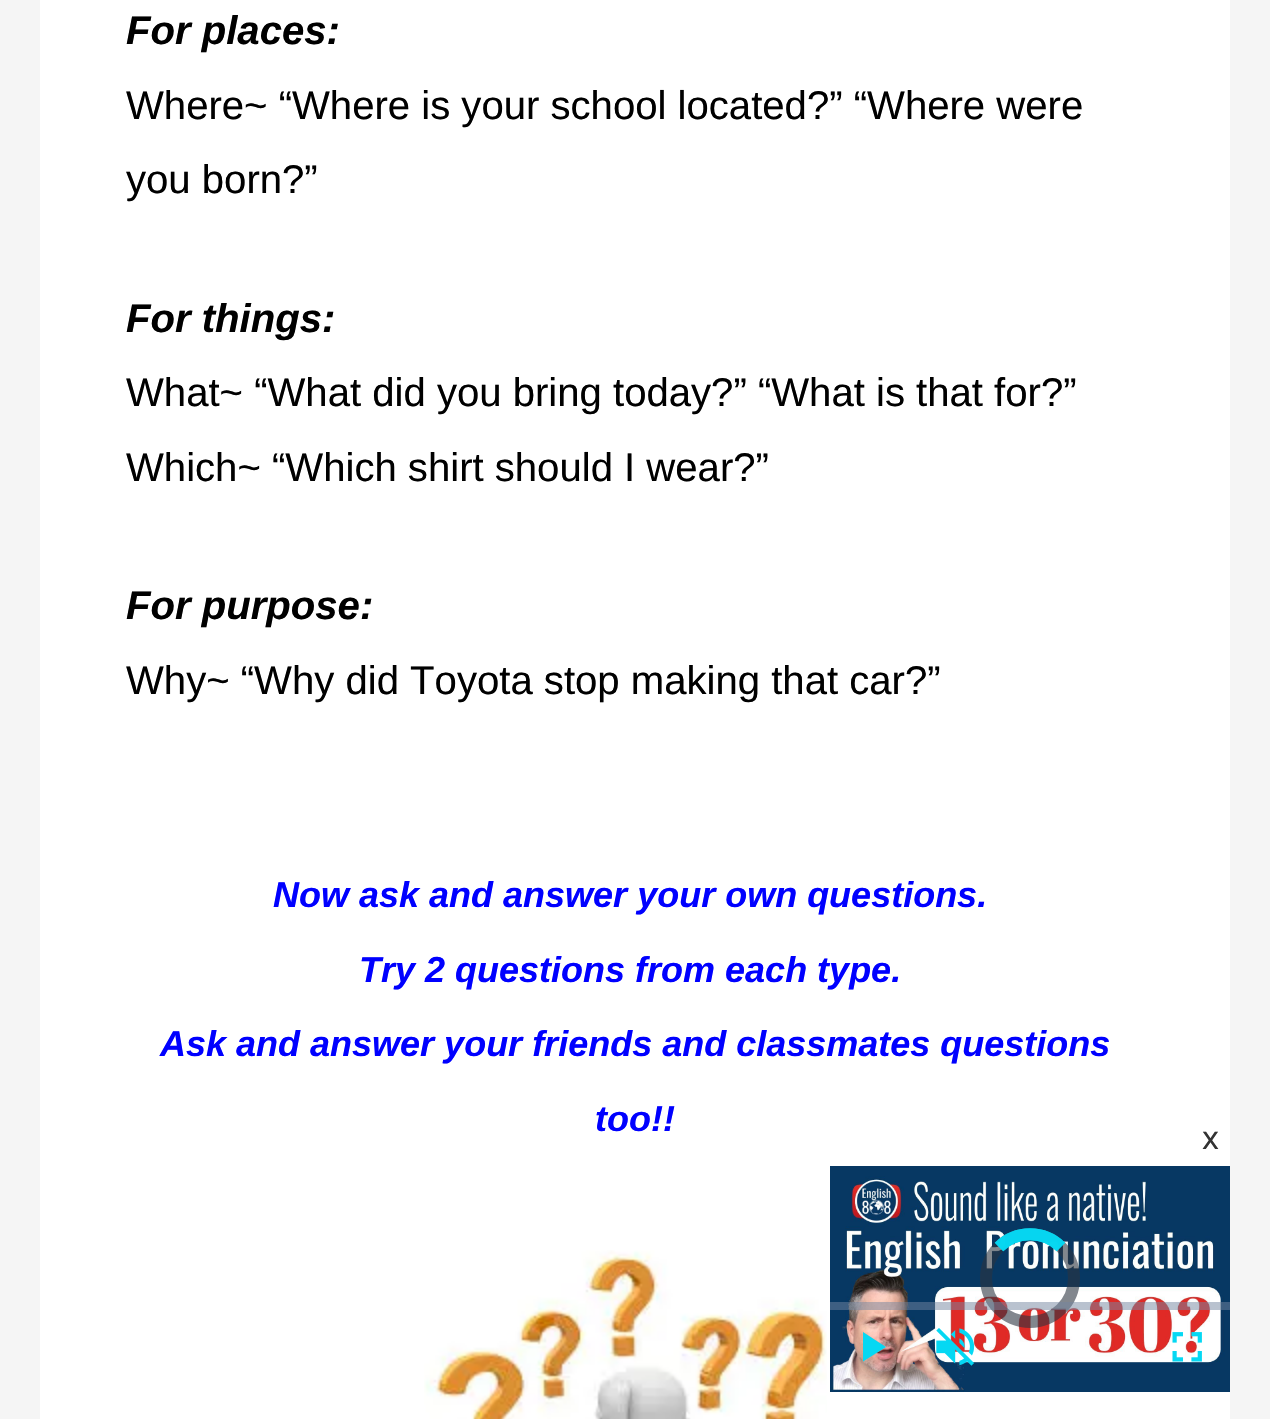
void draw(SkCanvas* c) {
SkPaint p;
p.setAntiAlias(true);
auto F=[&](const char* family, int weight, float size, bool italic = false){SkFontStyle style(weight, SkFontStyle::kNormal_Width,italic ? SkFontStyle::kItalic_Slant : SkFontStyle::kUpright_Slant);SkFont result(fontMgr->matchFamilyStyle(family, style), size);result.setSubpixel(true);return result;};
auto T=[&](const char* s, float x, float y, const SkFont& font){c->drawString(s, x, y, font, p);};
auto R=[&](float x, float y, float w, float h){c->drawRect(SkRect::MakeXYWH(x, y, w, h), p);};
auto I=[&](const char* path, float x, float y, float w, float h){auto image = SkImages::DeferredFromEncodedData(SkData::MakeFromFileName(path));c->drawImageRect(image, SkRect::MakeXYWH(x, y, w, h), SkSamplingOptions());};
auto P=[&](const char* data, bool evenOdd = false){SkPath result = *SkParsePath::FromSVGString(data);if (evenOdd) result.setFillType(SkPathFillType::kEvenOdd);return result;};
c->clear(0xfff5f5f5);
p.setColor(0xffffffff);
R(40,0,1190,1419);
auto f1 = F("Liberation Sans",700,40.1,true);
p.setColor(0xff000000);
T("For places:",126,44,f1);
auto f2 = F("Liberation Sans",400,40.1);
T("Where~ “Where is your school located?” “Where were",126,119,f2);
T("you born?”",126,193,f2);
T("For things:",126,332,f1);
T("What~ “What did you bring today?” “What is that for?”",126,406,f2);
T("Which~ “Which shirt should I wear?”",126,481,f2);
T("For purpose:",126,619,f1);
T("Why~ “Why did Toyota stop making that car?”",126,694,f2);
auto f3 = F("Liberation Sans",700,36,true);
p.setColor(0xff0000ff);
T("Now ask and answer your own questions.",273,907,f3);
T("Try 2 questions from each type.",359,982,f3);
T("Ask and answer your friends and classmates questions",160,1056,f3);
T("too!!",595,1131,f3);
auto f4 = F("Noto Sans",400,32);
p.setColor(0xff333333);
T("x",1202,1149,f4);
I("1.png",830,1166,400,226);
p.setStroke(true);
p.setStrokeWidth(12);
p.setColor(0x962b333f);
c->drawCircle(1030,1278,44,p);
p.setColor(0xd905d8f3);
c->drawPath(P("M999 1247c17-17 45-17 62 0"),p);
c->drawPath(P("M999 1247c17-17 45-17 62 0"),p);
p.setStroke(false);
p.setColor(0x8073859f);
R(830,1302,400,8);
p.setColor(0xff05d8f3);
c->drawPath(P("M863 1332v29.5l23-14.5z"),p);
I("2.png",936,1328,39,38);
I("3.png",1172,1332,30,30);
I("4.png",424,1250,403,169);
}
